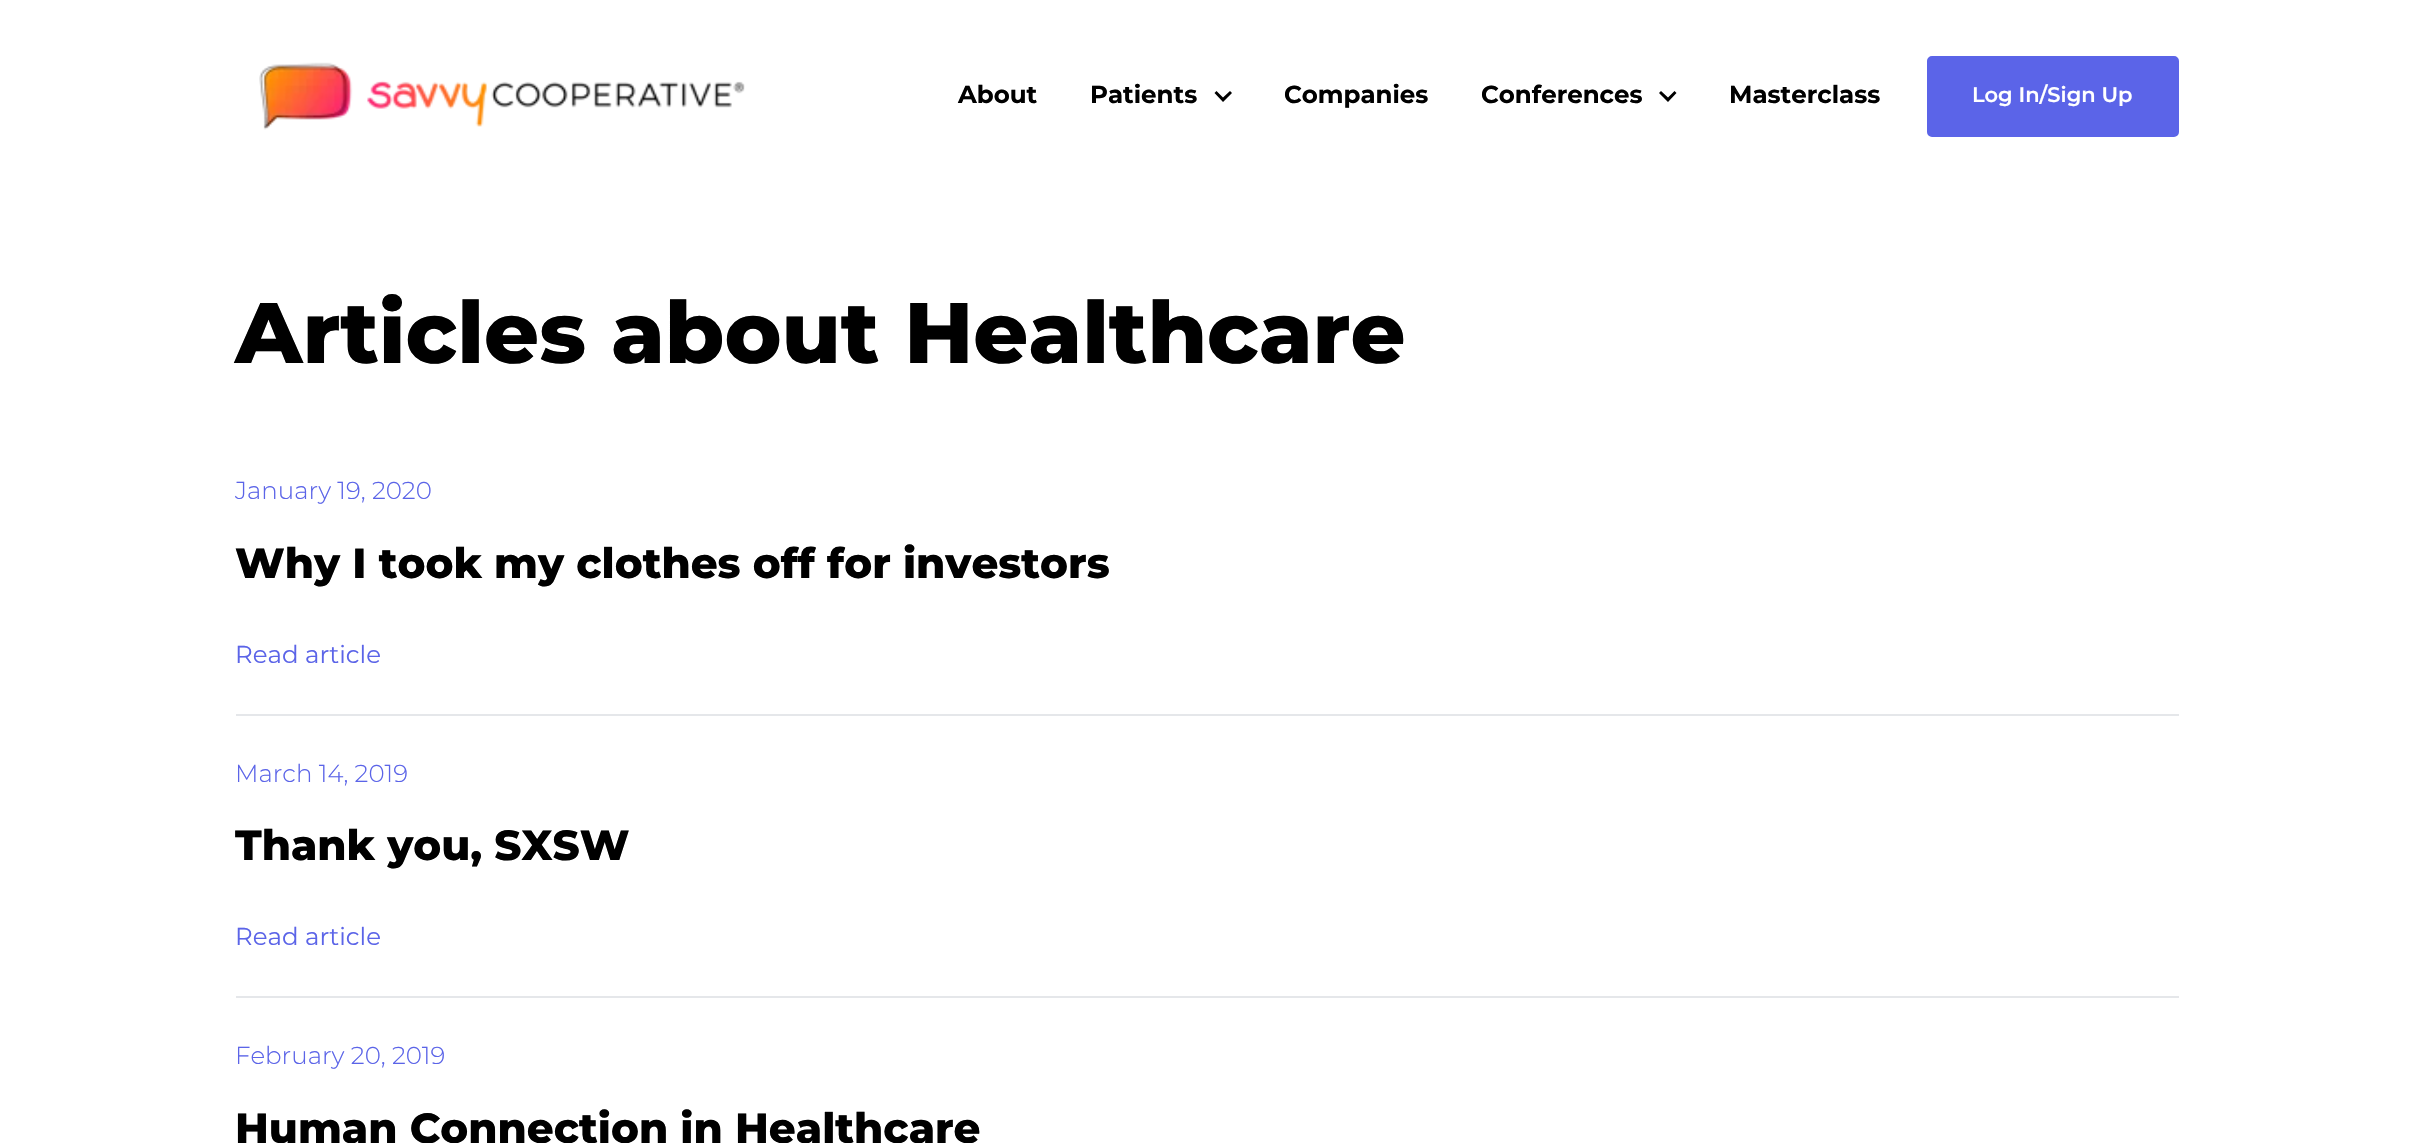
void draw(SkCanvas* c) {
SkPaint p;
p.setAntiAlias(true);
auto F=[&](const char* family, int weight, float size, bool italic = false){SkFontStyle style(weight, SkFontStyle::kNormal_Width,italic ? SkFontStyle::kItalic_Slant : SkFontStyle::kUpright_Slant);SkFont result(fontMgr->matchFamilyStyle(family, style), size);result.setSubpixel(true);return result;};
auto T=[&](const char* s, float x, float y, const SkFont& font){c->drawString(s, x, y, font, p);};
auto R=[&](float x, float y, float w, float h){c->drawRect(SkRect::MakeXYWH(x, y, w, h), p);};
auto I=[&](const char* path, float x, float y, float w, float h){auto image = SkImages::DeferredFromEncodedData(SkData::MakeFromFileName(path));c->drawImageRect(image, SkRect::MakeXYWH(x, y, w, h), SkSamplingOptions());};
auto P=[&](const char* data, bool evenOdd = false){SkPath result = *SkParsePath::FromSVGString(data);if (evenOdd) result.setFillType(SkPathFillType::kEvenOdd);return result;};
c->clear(0xffffffff);
I("1.png",259,62,486,68);
auto f1 = F("Montserrat",700,24.5);
p.setColor(0xff000000);
T("About",958,103,f1);
T("Patients",1090,103,f1);
c->drawPath(P("M1230 91l-7 6.5l-6.5-6.5l-2 2l8.5 9l9-9z",true),p);
T("Companies",1284,103,f1);
T("Conferences",1481,103,f1);
c->drawPath(P("M1674.5 91l-6.5 6.5l-7-6.5l-2 2l9 9l8.5-9z",true),p);
T("Masterclass",1729,103,f1);
p.setColor(0xff5b64e8);
c->drawRoundRect(SkRect::MakeXYWH(1928,57,250,79),4,4,p);
p.setStroke(true);
p.setStrokeWidth(2);
c->drawRoundRect(SkRect::MakeXYWH(1928,57,250,79),4,4,p);
auto f2 = F("Montserrat",600,21);
p.setStroke(false);
p.setColor(0xffffffff);
T("Log In/Sign Up",1972,102,f2);
auto f3 = F("Montserrat",800,85.75);
p.setColor(0xff000000);
T("Articles about Healthcare",235,363,f3);
auto f4 = F("Montserrat",300,24.5);
p.setColor(0xff5b64e8);
T("January 19, 2020",235,499,f4);
auto f5 = F("Montserrat",800,42);
p.setColor(0xff000000);
T("Why I took my clothes off for investors",235,578,f5);
auto f6 = F("Montserrat",400,24.5);
p.setColor(0xff5b64e8);
T("Read article",235,663,f6);
p.setColor(0xffe5e7ea);
R(236,714,1943,2);
p.setColor(0xff5b64e8);
T("March 14, 2019",235,782,f4);
p.setColor(0xff000000);
T("Thank you, SXSW",235,860,f5);
p.setColor(0xff5b64e8);
T("Read article",235,945,f6);
p.setColor(0xffe5e7ea);
R(236,996,1943,2);
p.setColor(0xff5b64e8);
T("February 20, 2019",235,1064,f4);
p.setColor(0xff000000);
T("Human Connection in Healthcare",235,1143,f5);
}
